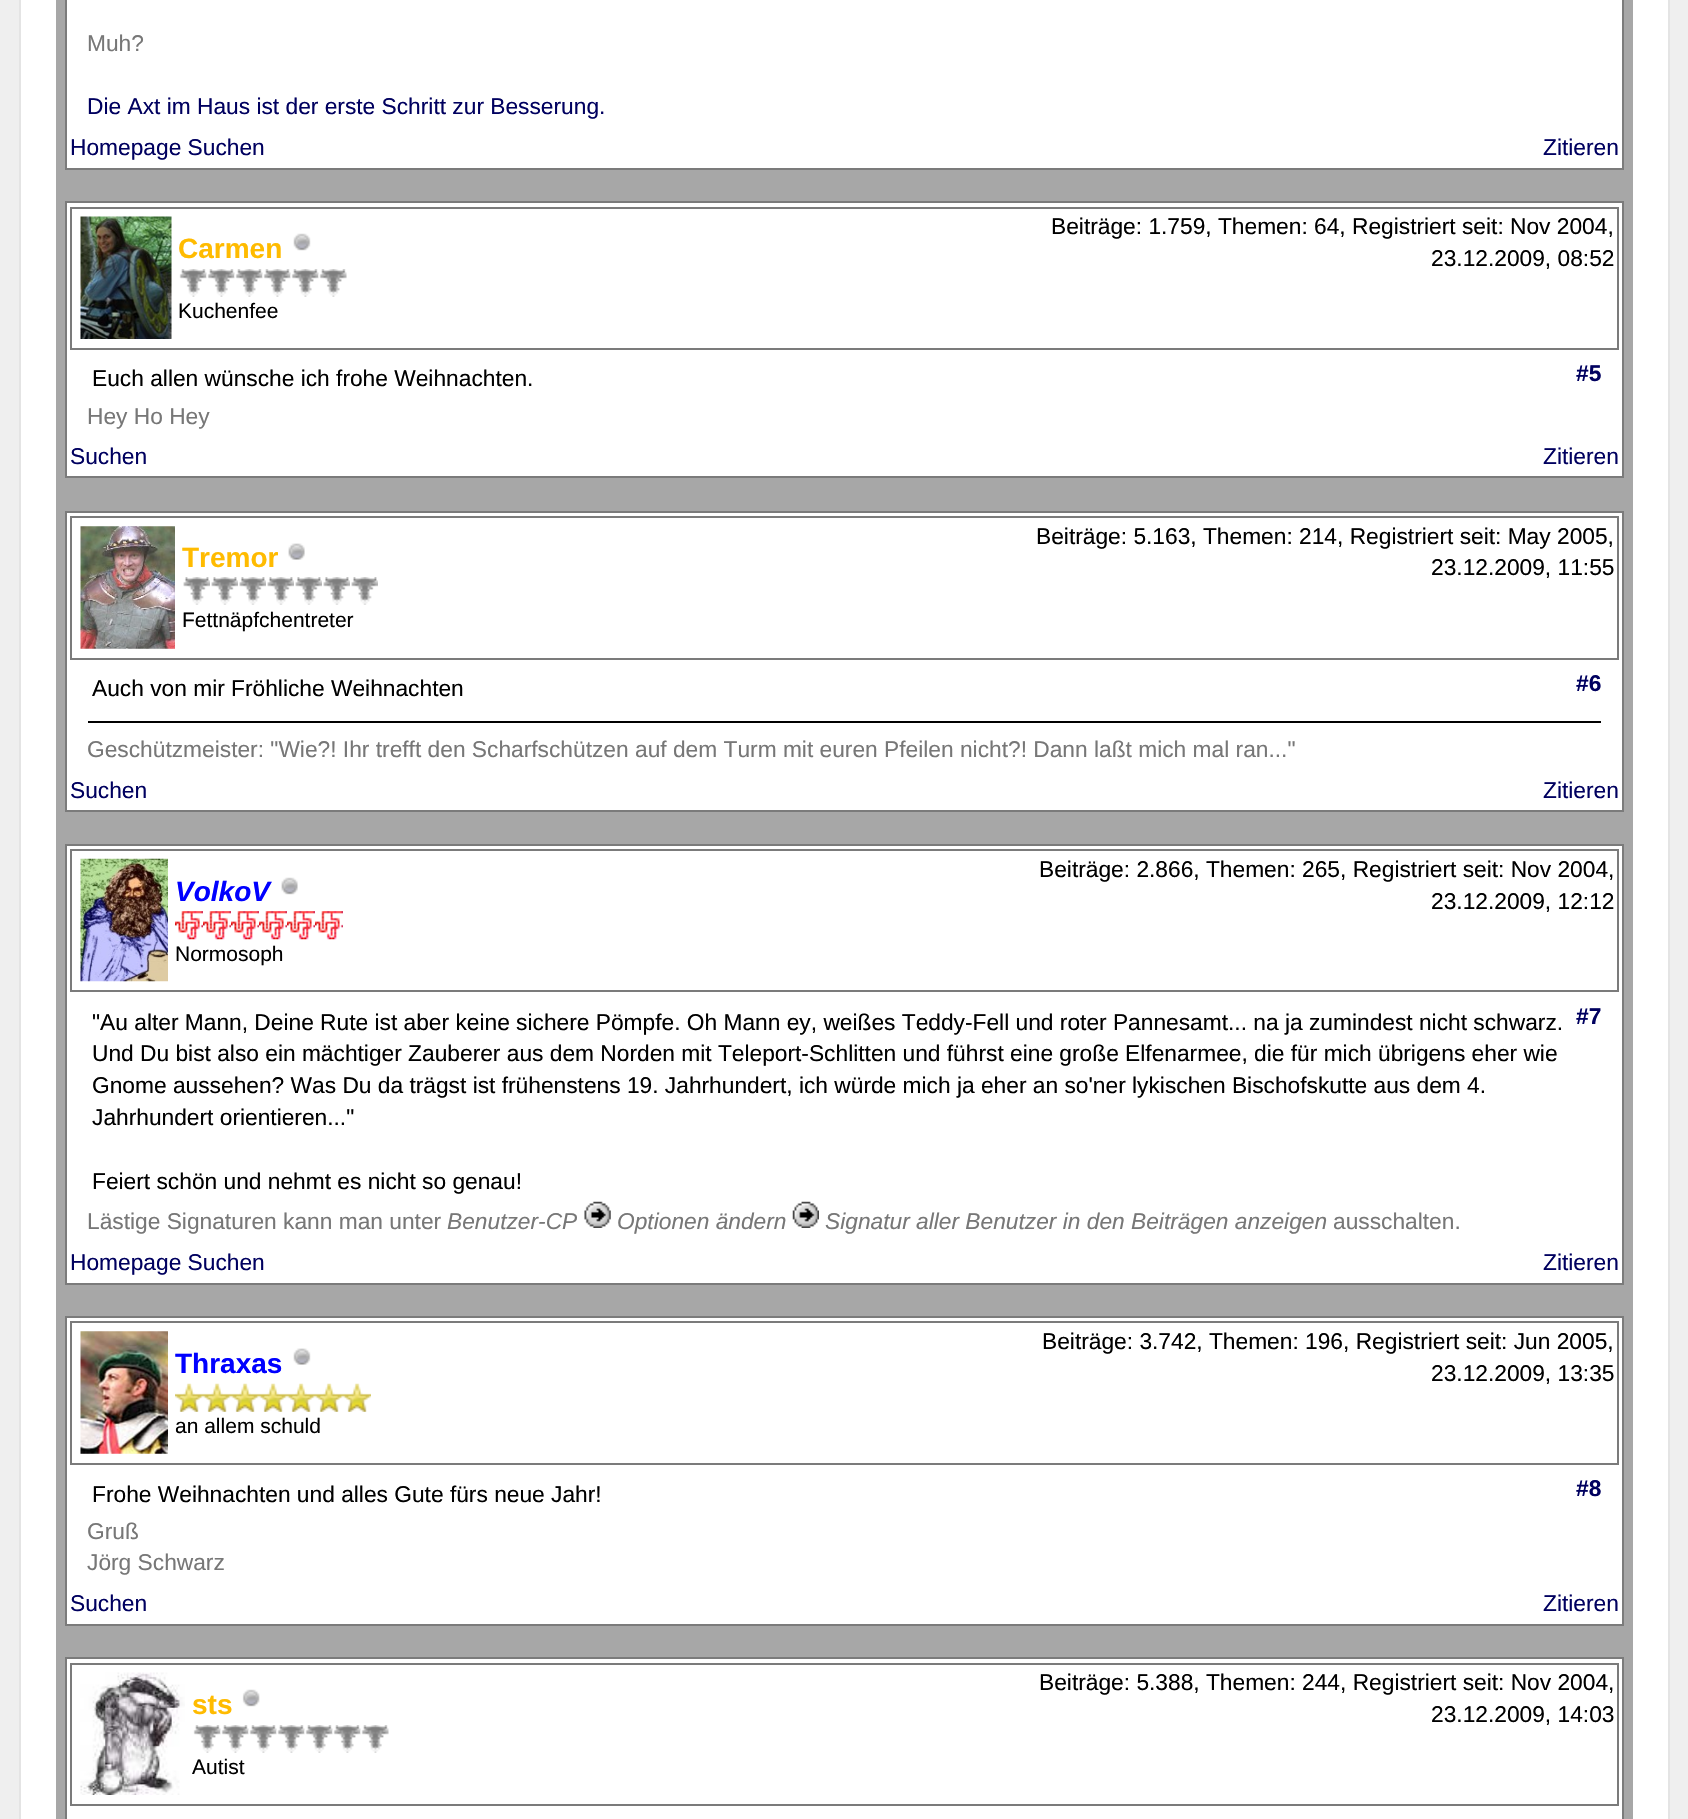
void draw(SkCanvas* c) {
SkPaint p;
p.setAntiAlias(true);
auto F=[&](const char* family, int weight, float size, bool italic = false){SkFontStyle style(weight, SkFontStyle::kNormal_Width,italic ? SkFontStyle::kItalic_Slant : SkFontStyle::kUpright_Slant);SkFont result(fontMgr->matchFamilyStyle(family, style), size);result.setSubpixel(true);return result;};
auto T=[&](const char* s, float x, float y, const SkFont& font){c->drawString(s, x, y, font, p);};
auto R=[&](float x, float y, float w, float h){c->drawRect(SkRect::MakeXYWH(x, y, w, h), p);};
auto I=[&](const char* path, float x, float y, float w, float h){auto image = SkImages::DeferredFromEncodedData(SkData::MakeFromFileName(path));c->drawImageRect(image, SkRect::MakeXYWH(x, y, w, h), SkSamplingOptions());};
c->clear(0xffefefef);
p.setColor(0xffffffff);
c->drawRect(SkRect::MakeXYWH(20,-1,1649,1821),p);
p.setStroke(true);
p.setStrokeWidth(2);
p.setColor(0xffe4e4e4);
c->drawRect(SkRect::MakeXYWH(20,-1,1649,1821),p);
p.setStroke(false);
p.setColor(0xffa7a7a7);
R(56,0,1577,1819);
p.setColor(0xffffffff);
c->drawRect(SkRect::MakeXYWH(66,-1,1557,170),p);
p.setStroke(true);
p.setColor(0xff7b7b7b);
c->drawRect(SkRect::MakeXYWH(66,-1,1557,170),p);
auto f1 = F("Liberation Sans",400,22.75);
p.setStroke(false);
p.setColor(0xff777777);
T("Muh?",87,51,f1);
p.setColor(0xff00005f);
T("Die Axt im Haus ist der erste Schritt zur Besserung.",87,114,f1);
T("Homepage Suchen",70,155,f1);
T("Zitieren",1543,155,f1);
p.setColor(0xffffffff);
c->drawRect(SkRect::MakeXYWH(66,202,1557,275),p);
p.setStroke(true);
p.setColor(0xff7b7b7b);
c->drawRect(SkRect::MakeXYWH(66,202,1557,275),p);
c->drawRect(SkRect::MakeXYWH(71,208,1547,141),p);
I("1.png",80,216,92,123);
auto f2 = F("Liberation Sans",700,28);
p.setStroke(false);
p.setColor(0xffffbb00);
T("Carmen",178,258,f2);
I("2.png",293,233,18,18);
I("3.png",179,269,28,28);
I("4.png",206,269,29,28);
I("5.png",234,269,29,28);
I("5.png",262,269,29,28);
I("6.png",290,269,29,28);
I("5.png",318,269,29,28);
auto f3 = F("Liberation Sans",400,21);
p.setColor(0xff000000);
T("Kuchenfee",178,318,f3);
T("Beiträge: 1.759, Themen: 64, Registriert seit: Nov 2004,",1051,234,f1);
T("23.12.2009, 08:52",1431,266,f1);
T("Euch allen wünsche ich frohe Weihnachten.",92,386,f1);
auto f4 = F("Liberation Sans",700,22.75);
p.setColor(0xff00005f);
T("#5",1576,381,f4);
p.setColor(0xff777777);
T("Hey Ho Hey",87,424,f1);
p.setColor(0xff00005f);
T("Suchen",70,464,f1);
T("Zitieren",1543,464,f1);
p.setColor(0xffffffff);
c->drawRect(SkRect::MakeXYWH(66,512,1557,299),p);
p.setStroke(true);
p.setColor(0xff7b7b7b);
c->drawRect(SkRect::MakeXYWH(66,512,1557,299),p);
c->drawRect(SkRect::MakeXYWH(71,517,1547,142),p);
I("7.png",80,526,95,123);
p.setStroke(false);
p.setColor(0xffffbb00);
T("Tremor",182,567,f2);
I("8.png",288,543,17,17);
I("9.png",183,577,27,28);
I("9.png",211,577,27,28);
I("10.png",239,577,27,28);
I("11.png",267,577,27,28);
I("10.png",295,577,27,28);
I("10.png",323,577,27,28);
I("9.png",351,577,27,28);
p.setColor(0xff000000);
T("Fettnäpfchentreter",182,627,f3);
T("Beiträge: 5.163, Themen: 214, Registriert seit: May 2005,",1036,544,f1);
T("23.12.2009, 11:55",1431,575,f1);
T("Auch von mir Fröhliche Weihnachten",92,696,f1);
p.setColor(0xff00005f);
T("#6",1576,691,f4);
p.setColor(0xff000000);
R(88,721,1513,2);
p.setColor(0xff777777);
T("Geschützmeister: \"Wie?! Ihr trefft den Scharfschützen auf dem Turm mit euren Pfeilen nicht?! Dann laßt mich mal ran...\"",87,757,f1);
p.setColor(0xff00005f);
T("Suchen",70,798,f1);
T("Zitieren",1543,798,f1);
p.setColor(0xffffffff);
c->drawRect(SkRect::MakeXYWH(66,845,1557,439),p);
p.setStroke(true);
p.setColor(0xff7b7b7b);
c->drawRect(SkRect::MakeXYWH(66,845,1557,439),p);
c->drawRect(SkRect::MakeXYWH(71,850,1547,141),p);
I("12.png",80,858,88,124);
auto f5 = F("Liberation Sans",700,28,true);
p.setStroke(false);
p.setColor(0xff0000ff);
T("VolkoV",175,901,f5);
I("13.png",281,877,17,18);
I("14.png",175,911,28,29);
I("14.png",203,911,28,29);
I("15.png",231,911,28,29);
I("15.png",259,911,28,29);
I("15.png",287,911,28,29);
I("15.png",315,911,28,29);
p.setColor(0xff000000);
T("Normosoph",175,961,f3);
T("Beiträge: 2.866, Themen: 265, Registriert seit: Nov 2004,",1039,877,f1);
T("23.12.2009, 12:12",1431,909,f1);
T("\"Au alter Mann, Deine Rute ist aber keine sichere Pömpfe. Oh Mann ey, weißes Teddy-Fell und roter Pannesamt... na ja zumindest nicht schwarz.",92,1030,f1);
T("Und Du bist also ein mächtiger Zauberer aus dem Norden mit Teleport-Schlitten und führst eine große Elfenarmee, die für mich übrigens eher wie",92,1061,f1);
T("Gnome aussehen? Was Du da trägst ist frühenstens 19. Jahrhundert, ich würde mich ja eher an so'ner lykischen Bischofskutte aus dem 4.",92,1093,f1);
T("Jahrhundert orientieren...\"",92,1125,f1);
T("Feiert schön und nehmt es nicht so genau!",92,1189,f1);
p.setColor(0xff00005f);
T("#7",1576,1024,f4);
p.setColor(0xff777777);
T("Lästige Signaturen kann man unter",87,1229,f1);
auto f6 = F("Liberation Sans",400,22.75,true);
T("Benutzer-CP",447,1229,f6);
I("16.png",584,1201,27,27);
T("Optionen ändern",617,1229,f6);
I("17.png",792,1201,27,27);
T("Signatur aller Benutzer in den Beiträgen anzeigen",825,1229,f6);
T("ausschalten.",1333,1229,f1);
p.setColor(0xff00005f);
T("Homepage Suchen",70,1270,f1);
T("Zitieren",1543,1270,f1);
p.setColor(0xffffffff);
c->drawRect(SkRect::MakeXYWH(66,1317,1557,308),p);
p.setStroke(true);
p.setColor(0xff7b7b7b);
c->drawRect(SkRect::MakeXYWH(66,1317,1557,308),p);
c->drawRect(SkRect::MakeXYWH(71,1322,1547,142),p);
I("18.png",80,1331,88,123);
p.setStroke(false);
p.setColor(0xff0000ff);
T("Thraxas",175,1373,f2);
I("19.png",293,1348,18,17);
I("20.png",175,1383,28,29);
I("20.png",203,1383,28,29);
I("21.png",231,1383,28,29);
I("21.png",259,1383,28,29);
I("21.png",287,1383,28,29);
I("21.png",315,1383,28,29);
I("21.png",343,1383,28,29);
p.setColor(0xff000000);
T("an allem schuld",175,1433,f3);
T("Beiträge: 3.742, Themen: 196, Registriert seit: Jun 2005,",1042,1349,f1);
T("23.12.2009, 13:35",1431,1381,f1);
T("Frohe Weihnachten und alles Gute fürs neue Jahr!",92,1502,f1);
p.setColor(0xff00005f);
T("#8",1576,1496,f4);
p.setColor(0xff777777);
T("Gruß",87,1539,f1);
T("Jörg Schwarz",87,1570,f1);
p.setColor(0xff00005f);
T("Suchen",70,1611,f1);
T("Zitieren",1543,1611,f1);
p.setColor(0xffffffff);
c->drawRect(SkRect::MakeXYWH(66,1658,1557,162),p);
p.setStroke(true);
p.setColor(0xff7b7b7b);
c->drawRect(SkRect::MakeXYWH(66,1658,1557,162),p);
c->drawRect(SkRect::MakeXYWH(71,1664,1547,141),p);
I("22.png",80,1672,105,123);
p.setStroke(false);
p.setColor(0xffffbb00);
T("sts",192,1714,f2);
I("23.png",242,1689,18,18);
I("3.png",193,1725,28,28);
I("4.png",220,1725,29,28);
I("5.png",248,1725,29,28);
I("6.png",276,1725,29,28);
I("5.png",304,1725,29,28);
I("5.png",332,1725,29,28);
I("4.png",360,1725,29,28);
p.setColor(0xff000000);
T("Autist",192,1774,f3);
T("Beiträge: 5.388, Themen: 244, Registriert seit: Nov 2004,",1039,1690,f1);
T("23.12.2009, 14:03",1431,1722,f1);
}
